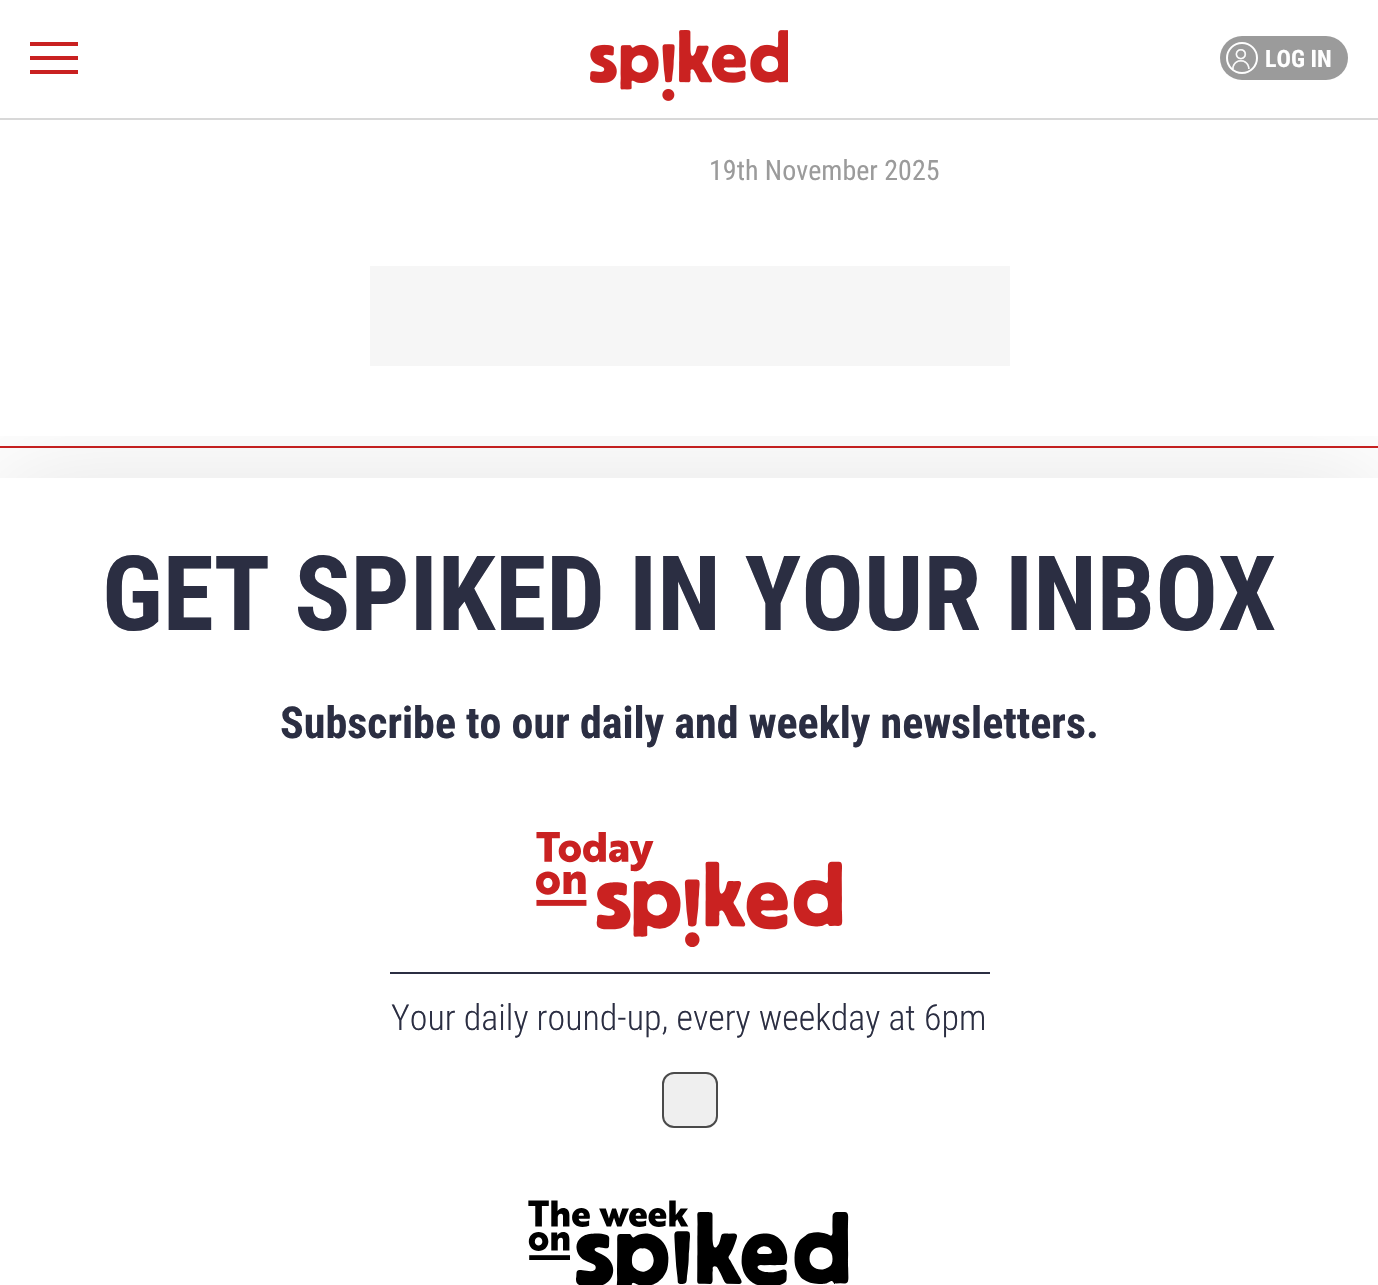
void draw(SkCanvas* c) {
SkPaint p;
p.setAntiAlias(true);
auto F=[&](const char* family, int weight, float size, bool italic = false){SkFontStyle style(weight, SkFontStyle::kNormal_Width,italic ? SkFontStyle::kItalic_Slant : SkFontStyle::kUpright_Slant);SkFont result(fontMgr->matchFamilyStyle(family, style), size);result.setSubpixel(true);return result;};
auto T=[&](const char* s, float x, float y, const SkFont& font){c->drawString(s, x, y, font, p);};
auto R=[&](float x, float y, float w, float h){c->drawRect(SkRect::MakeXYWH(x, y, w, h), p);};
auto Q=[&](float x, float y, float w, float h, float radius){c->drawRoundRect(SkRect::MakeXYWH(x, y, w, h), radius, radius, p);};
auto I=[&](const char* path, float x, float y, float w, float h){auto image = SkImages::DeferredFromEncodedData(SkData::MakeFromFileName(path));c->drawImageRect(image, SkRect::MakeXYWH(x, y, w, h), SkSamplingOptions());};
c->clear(0xffffffff);
p.setColor(0xffd8d8d8);
R(0,118,1378,2);
p.setColor(0xffc92121);
R(30,42,48,4);
R(30,56,48,4);
R(30,70,48,4);
I("1.png",590,30,198,71);
p.setColor(0xff9b9b9b);
Q(1220,36,128,44,22);
I("2.png",1232,49,18,20);
p.setStroke(true);
p.setStrokeWidth(2);
p.setColor(0xffffffff);
c->drawCircle(1242,58,15,p);
auto f1 = F("Roboto Condensed",700,24);
p.setStroke(false);
T("LOG IN",1265,67,f1);
auto f2 = F("Roboto Condensed",400,28);
p.setColor(0xff9b9b9b);
T("19th November 2025",709,180,f2);
p.setColor(0xfff6f6f6);
R(370,266,640,100);
p.setColor(0xffc92121);
R(0,446,1378,2);
c->save();
c->clipRect(SkRect::MakeXYWH(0,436,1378,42));
p.setColor(0x1a000000);
p.setMaskFilter(SkMaskFilter::MakeBlur(kNormal_SkBlurStyle, 50));
c->drawRect(SkRect::MakeXYWH(0,478,1378,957),p);
p.setMaskFilter(nullptr);
c->restore();
auto f3 = F("Roboto Condensed",700,104);
p.setColor(0xff2b2e42);
T("GET SPIKED IN YOUR INBOX",102,630,f3);
auto f4 = F("Roboto Condensed",700,44);
T("Subscribe to our daily and weekly newsletters.",280,738,f4);
R(390,972,600,2);
I("3.png",536,832,307,115);
auto f5 = F("Roboto Condensed",300,36);
T("Your daily round-up, every weekday at 6pm",391,1030,f5);
p.setColor(0xffefefef);
c->drawRoundRect(SkRect::MakeXYWH(663,1073,54,54),11,11,p);
p.setStroke(true);
p.setColor(0xff4a4a4a);
c->drawRoundRect(SkRect::MakeXYWH(663,1073,54,54),11,11,p);
I("4.png",528,1200,321,85);
}
